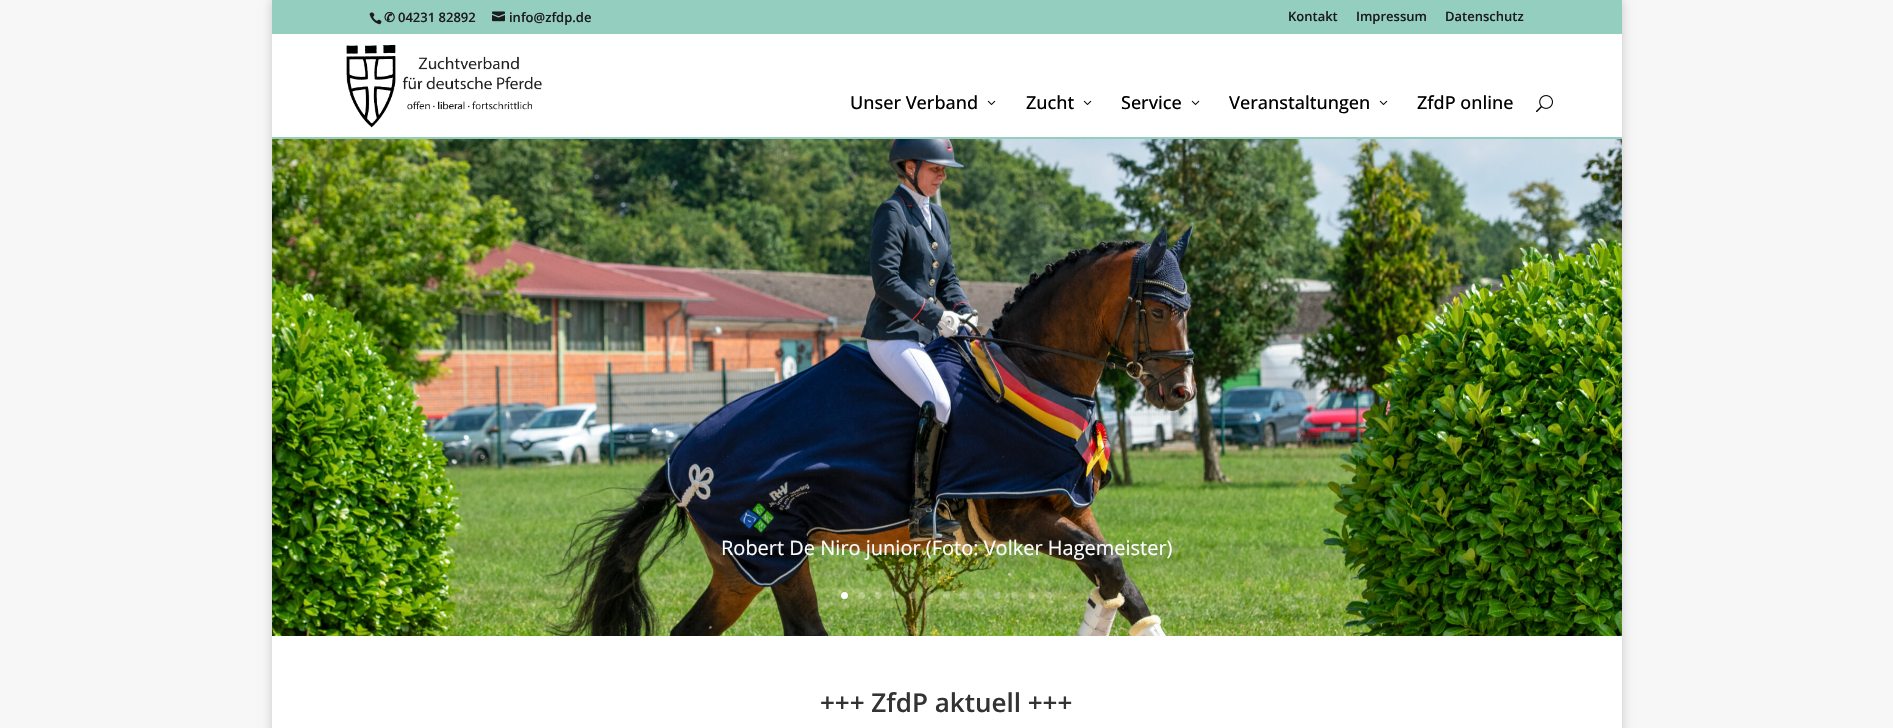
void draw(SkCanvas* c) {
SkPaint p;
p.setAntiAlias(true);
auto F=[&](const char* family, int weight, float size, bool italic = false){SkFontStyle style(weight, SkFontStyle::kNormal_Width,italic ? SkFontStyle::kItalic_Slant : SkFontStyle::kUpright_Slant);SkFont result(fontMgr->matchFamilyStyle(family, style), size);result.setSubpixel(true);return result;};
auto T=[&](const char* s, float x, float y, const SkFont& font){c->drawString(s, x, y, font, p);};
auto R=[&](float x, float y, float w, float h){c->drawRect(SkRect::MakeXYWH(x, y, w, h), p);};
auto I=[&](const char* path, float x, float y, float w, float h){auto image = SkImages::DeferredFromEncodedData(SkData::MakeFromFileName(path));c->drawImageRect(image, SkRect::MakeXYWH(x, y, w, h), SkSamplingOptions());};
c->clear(0xfff7f7f7);
p.setColor(0x33000000);
p.setMaskFilter(SkMaskFilter::MakeBlur(kNormal_SkBlurStyle, 5));
c->drawRect(SkRect::MakeXYWH(272,0,1350,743),p);
p.setMaskFilter(nullptr);
p.setColor(0xff94cebf);
R(272,0,1350,34);
I("1.png",369,12,13,13);
auto f1 = F("DejaVu Sans",700,13);
p.setColor(0xff1c1c1c);
T("✆",384,22,f1);
auto f2 = F("Open Sans",600,13);
T("04231 82892",398,22,f2);
I("2.png",492,11,13,11);
T("info@zfdp.de",509,22,f2);
T("Kontakt",1288,21,f2);
T("Impressum",1356,21,f2);
T("Datenschutz",1445,21,f2);
p.setColor(0xff94cebf);
R(272,137,1350,2);
p.setColor(0xffffffff);
R(272,34,1350,103);
I("3.png",346,44,196,84);
auto f3 = F("Open Sans",500,18);
p.setColor(0xff000000);
T("Unser Verband",850,109,f3);
I("4.png",987,100,9,5);
T("Zucht",1026,109,f3);
I("4.png",1083,100,9,5);
T("Service",1121,109,f3);
I("4.png",1191,100,9,5);
T("Veranstaltungen",1229,109,f3);
I("4.png",1379,100,9,5);
T("ZfdP online",1417,109,f3);
I("5.png",1536,95,17,18);
I("6.png",272,139,1350,497);
auto f4 = F("Open Sans",400,20);
p.setColor(0xffffffff);
T("Robert De Niro junior (Foto: Volker Hagemeister)",721,555,f4);
c->drawCircle(844.5,595.5,3.5,p);
p.setColor(0x40ffffff);
c->drawCircle(861.5,595.5,3.5,p);
c->drawCircle(878.5,595.5,3.5,p);
c->drawCircle(895.5,595.5,3.5,p);
c->drawCircle(912.5,595.5,3.5,p);
c->drawCircle(929.5,595.5,3.5,p);
c->drawCircle(946.5,595.5,3.5,p);
c->drawCircle(963.5,595.5,3.5,p);
c->drawCircle(980.5,595.5,3.5,p);
c->drawCircle(997.5,595.5,3.5,p);
c->drawCircle(1014.5,595.5,3.5,p);
c->drawCircle(1031.5,595.5,3.5,p);
c->drawCircle(1048.5,595.5,3.5,p);
p.setColor(0xffffffff);
R(272,636,1350,92);
auto f5 = F("Open Sans",600,26);
p.setColor(0xff333333);
T("+++ ZfdP aktuell +++",820,712,f5);
}
